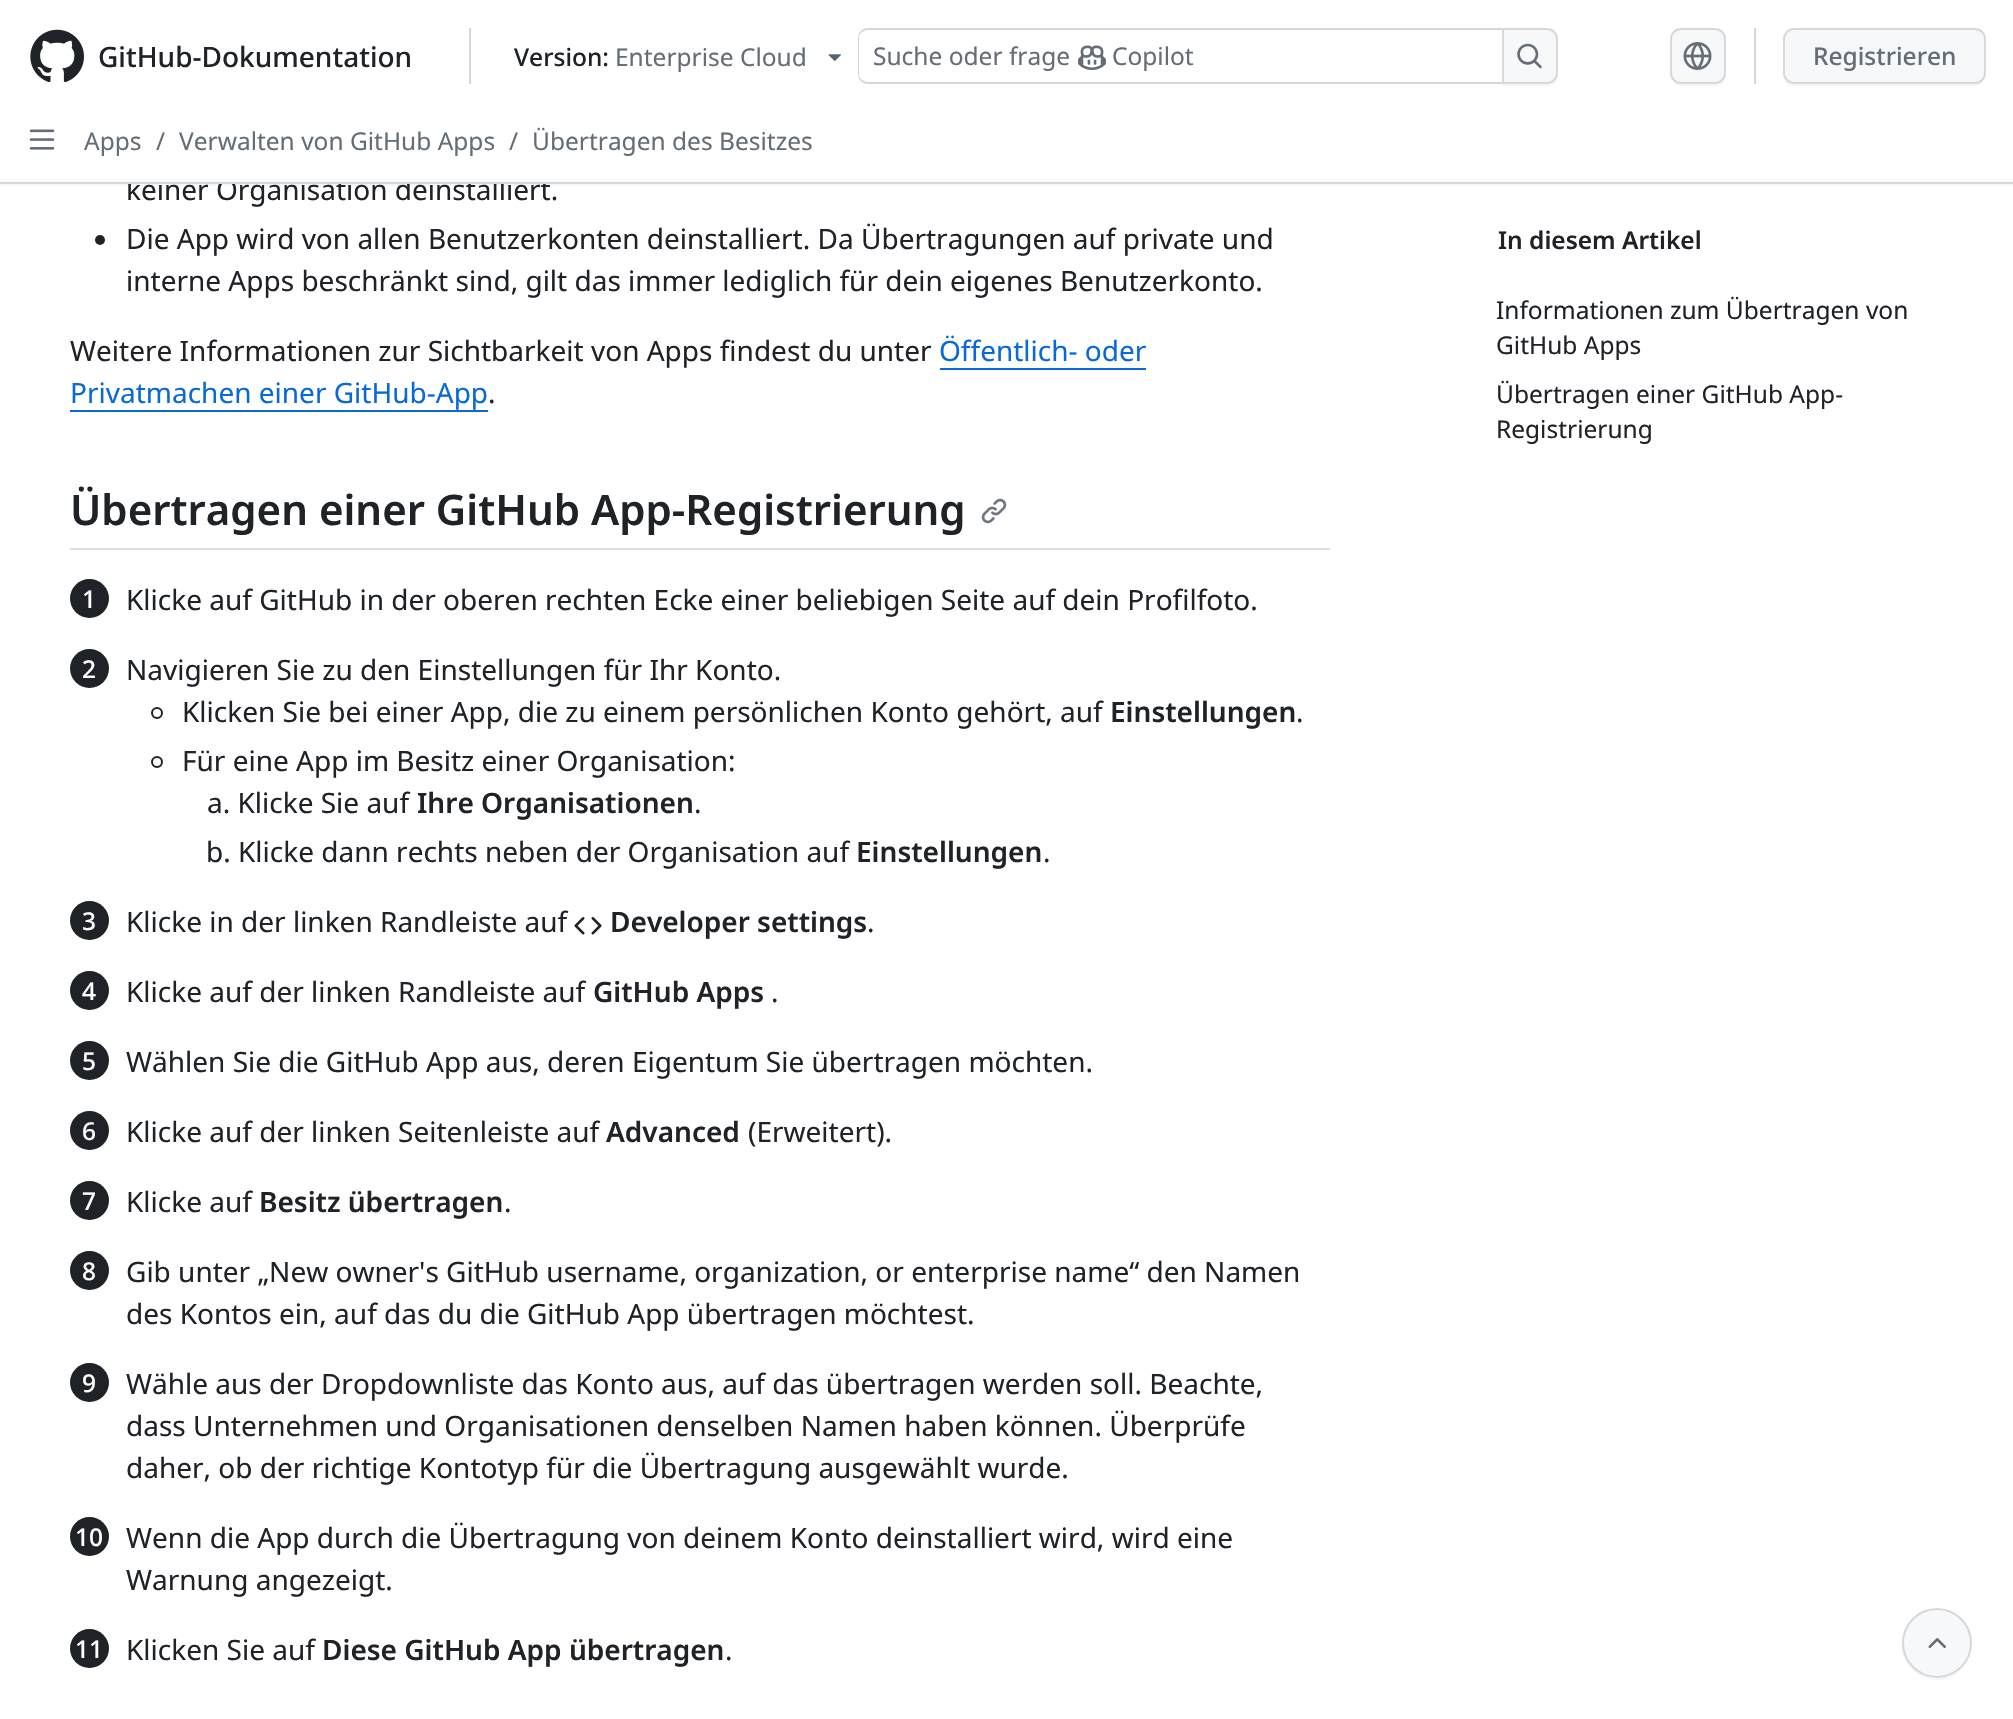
void draw(SkCanvas* c) {
SkPaint p;
p.setAntiAlias(true);
auto F=[&](const char* family, int weight, float size, bool italic = false){SkFontStyle style(weight, SkFontStyle::kNormal_Width,italic ? SkFontStyle::kItalic_Slant : SkFontStyle::kUpright_Slant);SkFont result(fontMgr->matchFamilyStyle(family, style), size);result.setSubpixel(true);return result;};
auto T=[&](const char* s, float x, float y, const SkFont& font){c->drawString(s, x, y, font, p);};
auto R=[&](float x, float y, float w, float h){c->drawRect(SkRect::MakeXYWH(x, y, w, h), p);};
auto Q=[&](float x, float y, float w, float h, float radius){c->drawRoundRect(SkRect::MakeXYWH(x, y, w, h), radius, radius, p);};
auto I=[&](const char* path, float x, float y, float w, float h){auto image = SkImages::DeferredFromEncodedData(SkData::MakeFromFileName(path));c->drawImageRect(image, SkRect::MakeXYWH(x, y, w, h), SkSamplingOptions());};
auto P=[&](const char* data, bool evenOdd = false){SkPath result = *SkParsePath::FromSVGString(data);if (evenOdd) result.setFillType(SkPathFillType::kEvenOdd);return result;};
c->clear(0xffffffff);
p.setColor(0x0a1f2328);
R(0,184,2013,2);
auto f1 = F("Noto Sans",400,28);
p.setColor(0xff1f2328);
T("keiner Organisation deinstalliert.",126,200,f1);
p.setColor(0xffffffff);
R(128,178,418,4);
p.setColor(0xffd0d7de);
R(0,182,2013,2);
I("1.png",30,29,54,54);
auto f2 = F("Noto Sans",500,28);
p.setColor(0xff1f2328);
T("GitHub-Dokumentation",98,67,f2);
p.setColor(0xffd0d7de);
R(469,28,2,56);
auto f3 = F("Noto Sans",500,24.5);
p.setColor(0xff1f2328);
T("Version:",514,66,f3);
auto f4 = F("Noto Sans",400,24.5);
p.setColor(0xff656d76);
T("Enterprise Cloud",615,66,f4);
I("2.png",828,54,14,7);
p.setColor(0xffd0d7de);
c->drawPath(P("M868 28h634v56h-634c-6 0-10-5-10-10v-36c0-5 4-10 10-10zm0 2h634v52h-634c-5 0-9-4-9-8v-36c0-4 4-8 9-8z",true),p);
p.setColor(0xff656d76);
T("Suche oder frage",873,65,f4);
I("3.png",1078,45,28,25);
T("Copilot",1112,65,f4);
p.setColor(0xfff6f6f6);
c->drawPath(P("M1502 84v2h45c6 0 11-5 11-11v-34l-1-3l1 24c0 8 2 20-9 22z"),p);
p.setColor(0xfff6f8fa);
c->drawPath(P("M1502 28h45c6 0 11 5 11 11v34c0 6-5 11-11 11h-45z"),p);
p.setStroke(true);
p.setStrokeWidth(2);
p.setColor(0x261f2328);
c->drawPath(P("M1503 29h44c5.5 0 10 4.5 10 10v34c0 5.5-4.5 10-10 10h-44z"),p);
I("4.png",1517,43,25,26);
p.setStroke(false);
p.setColor(0xfff6f6f6);
c->drawPath(P("M1670 77c1 5 6 9 11 9h34c6 0 11-5 11-11v-34l-1-3v38l-1 3c-4 5-9 5-15 5h-23c-6 0-13 0-16-7z"),p);
p.setColor(0xfff6f8fa);
Q(1670,28,56,56,11);
p.setStroke(true);
p.setColor(0x261f2328);
c->drawRoundRect(SkRect::MakeXYWH(1671,29,54,54),10,10,p);
I("5.png",1683,42,29,28);
p.setStroke(false);
p.setColor(0xffd0d7de);
R(1754,28,2,56);
p.setColor(0xfff6f6f6);
c->drawPath(P("M1783 39v36c0 6 5 11 11 11h181c6 0 10-4 11-10c-1 5-5 8-10 8h-182c-6 0-11-5-11-10z"),p);
p.setColor(0xfff6f8fa);
Q(1783,28,203,56,11);
p.setStroke(true);
p.setColor(0x261f2328);
c->drawRoundRect(SkRect::MakeXYWH(1784,29,201,54),10,10,p);
p.setStroke(false);
p.setColor(0xff656d76);
T("Registrieren",1813,65,f3);
I("6.png",29,129,26,21);
T("Apps",84,150,f4);
T("/",156,150,f4);
T("Verwalten von GitHub Apps",179,150,f4);
T("/",509,150,f4);
T("Übertragen des Besitzes",532,150,f4);
p.setColor(0xff1f2328);
c->drawCircle(100,240,5,p);
T("Die App wird von allen Benutzerkonten deinstalliert. Da Übertragungen auf private und",126,249,f1);
T("interne Apps beschränkt sind, gilt das immer lediglich für dein eigenes Benutzerkonto.",126,291,f1);
T("Weitere Informationen zur Sichtbarkeit von Apps findest du unter",70,361,f1);
p.setColor(0xff0969da);
T("Öffentlich- oder",939,361,f1);
R(940,368,206,2);
T("Privatmachen einer GitHub-App",70,403,f1);
R(70,410,418,2);
p.setColor(0xff1f2328);
T(".",488,403,f1);
p.setColor(0xffd8dee4);
R(70,548,1260,2);
auto f5 = F("Noto Sans",600,42);
p.setColor(0xff1f2328);
T("Übertragen einer GitHub App-Registrierung",70,525,f5);
I("7.png",981,498,26,26);
c->drawCircle(89.5,598.5,19.5,p);
p.setColor(0xffffffff);
T("1",82,608,f3);
p.setColor(0xff1f2328);
T("Klicke auf GitHub in der oberen rechten Ecke einer beliebigen Seite auf dein Profilfoto.",126,610,f1);
c->drawCircle(89.5,668.5,19.5,p);
p.setColor(0xffffffff);
T("2",82,678,f3);
p.setColor(0xff1f2328);
T("Navigieren Sie zu den Einstellungen für Ihr Konto.",126,680,f1);
p.setStroke(true);
c->drawCircle(157,713,5,p);
p.setStroke(false);
T("Klicken Sie bei einer App, die zu einem persönlichen Konto gehört, auf",182,722,f1);
auto f6 = F("Noto Sans",600,28);
T("Einstellungen",1110,722,f6);
T(".",1296,722,f1);
p.setStroke(true);
c->drawCircle(157,762,5,p);
p.setStroke(false);
T("Für eine App im Besitz einer Organisation:",182,771,f1);
T("a. Klicke Sie auf",207,813,f1);
T("Ihre Organisationen",417,813,f6);
T(".",694,813,f1);
T("b. Klicke dann rechts neben der Organisation auf",206,862,f1);
T("Einstellungen",856,862,f6);
T(".",1043,862,f1);
c->drawCircle(89.5,920.5,19.5,p);
p.setColor(0xffffffff);
T("3",82,930,f3);
p.setColor(0xff1f2328);
T("Klicke in der linken Randleiste auf",126,932,f1);
I("8.png",574,917,28,18);
T("Developer settings",610,932,f6);
T(".",867,932,f1);
c->drawCircle(89.5,990.5,19.5,p);
p.setColor(0xffffffff);
T("4",82,1000,f3);
p.setColor(0xff1f2328);
T("Klicke auf der linken Randleiste auf",126,1002,f1);
T("GitHub Apps",593,1002,f6);
T(".",771,1002,f1);
c->drawCircle(89.5,1060.5,19.5,p);
p.setColor(0xffffffff);
T("5",82,1070,f3);
p.setColor(0xff1f2328);
T("Wählen Sie die GitHub App aus, deren Eigentum Sie übertragen möchten.",126,1072,f1);
c->drawCircle(89.5,1130.5,19.5,p);
p.setColor(0xffffffff);
T("6",82,1140,f3);
p.setColor(0xff1f2328);
T("Klicke auf der linken Seitenleiste auf",126,1142,f1);
T("Advanced",606,1142,f6);
T("(Erweitert).",748,1142,f1);
c->drawCircle(89.5,1200.5,19.5,p);
p.setColor(0xffffffff);
T("7",82,1210,f3);
p.setColor(0xff1f2328);
T("Klicke auf",126,1212,f1);
T("Besitz übertragen",259,1212,f6);
T(".",504,1212,f1);
c->drawCircle(89.5,1270.5,19.5,p);
p.setColor(0xffffffff);
T("8",82,1280,f3);
p.setColor(0xff1f2328);
T("Gib unter „New owner's GitHub username, organization, or enterprise name“ den Namen",126,1282,f1);
T("des Kontos ein, auf das du die GitHub App übertragen möchtest.",126,1324,f1);
c->drawCircle(89.5,1382.5,19.5,p);
p.setColor(0xffffffff);
T("9",82,1392,f3);
p.setColor(0xff1f2328);
T("Wähle aus der Dropdownliste das Konto aus, auf das übertragen werden soll. Beachte,",126,1394,f1);
T("dass Unternehmen und Organisationen denselben Namen haben können. Überprüfe",126,1436,f1);
T("daher, ob der richtige Kontotyp für die Übertragung ausgewählt wurde.",126,1478,f1);
c->drawCircle(89.5,1536.5,19.5,p);
p.setColor(0xffffffff);
T("10",75,1546,f3);
p.setColor(0xff1f2328);
T("Wenn die App durch die Übertragung von deinem Konto deinstalliert wird, wird eine",126,1548,f1);
T("Warnung angezeigt.",126,1590,f1);
c->drawCircle(89.5,1648.5,19.5,p);
p.setColor(0xffffffff);
T("11",75,1658,f3);
p.setColor(0xff1f2328);
T("Klicken Sie auf",126,1660,f1);
T("Diese GitHub App übertragen",322,1660,f6);
T(".",725,1660,f1);
auto f7 = F("Noto Sans",600,24.5);
T("In diesem Artikel",1498,249,f7);
T("Informationen zum Übertragen von",1496,319,f4);
T("GitHub Apps",1496,354,f4);
T("Übertragen einer GitHub App-",1496,403,f4);
T("Registrierung",1496,438,f4);
p.setColor(0xfff6f6f6);
c->drawPath(P("M1902 1639c-5 32 34 54 58 32c7-6 11-13 12-22c-5 31-46 40-64 14c-4-7-6-16-6-24z"),p);
p.setColor(0xfff6f8fa);
c->drawCircle(1937,1643,35,p);
p.setStroke(true);
p.setColor(0x261f2328);
c->drawCircle(1937,1643,34,p);
I("9.png",1928,1638,18,10);
}
